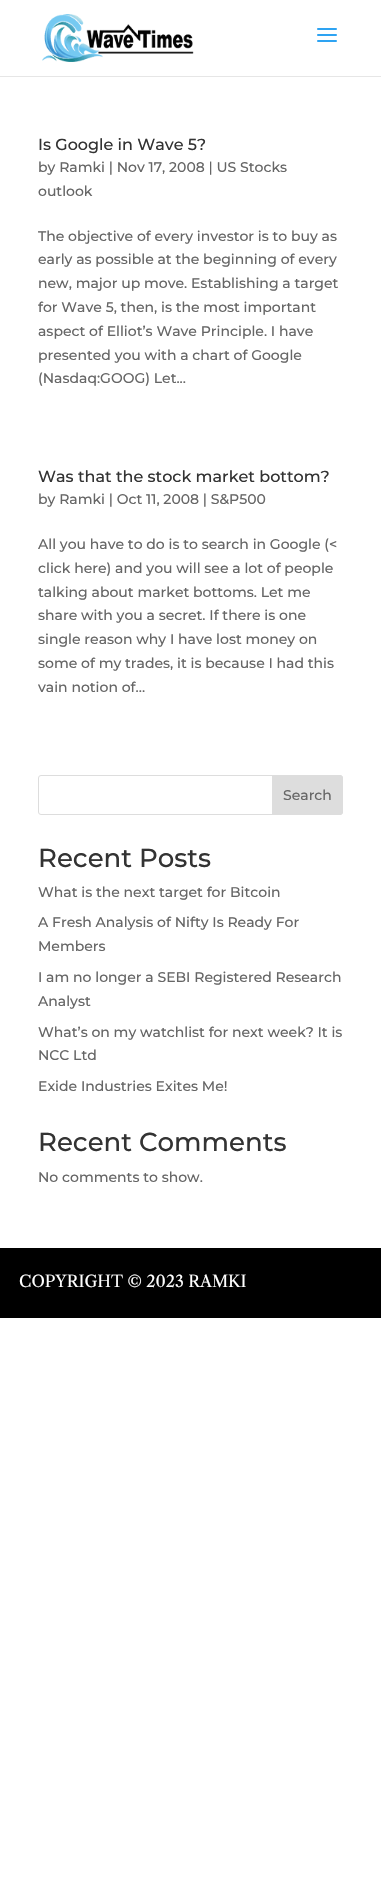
void draw(SkCanvas* c) {
SkPaint p;
p.setAntiAlias(true);
auto F=[&](const char* family, int weight, float size, bool italic = false){SkFontStyle style(weight, SkFontStyle::kNormal_Width,italic ? SkFontStyle::kItalic_Slant : SkFontStyle::kUpright_Slant);SkFont result(fontMgr->matchFamilyStyle(family, style), size);result.setSubpixel(true);return result;};
auto T=[&](const char* s, float x, float y, const SkFont& font){c->drawString(s, x, y, font, p);};
auto R=[&](float x, float y, float w, float h){c->drawRect(SkRect::MakeXYWH(x, y, w, h), p);};
auto I=[&](const char* path, float x, float y, float w, float h){auto image = SkImages::DeferredFromEncodedData(SkData::MakeFromFileName(path));c->drawImageRect(image, SkRect::MakeXYWH(x, y, w, h), SkSamplingOptions());};
auto P=[&](const char* data, bool evenOdd = false){SkPath result = *SkParsePath::FromSVGString(data);if (evenOdd) result.setFillType(SkPathFillType::kEvenOdd);return result;};
c->clear(0xffffffff);
p.setColor(0xffe6e6e6);
R(0,76,381,1);
I("1.png",42,14,152,48);
I("2.png",317,28,20,14);
auto f1 = F("Montserrat",500,16);
p.setColor(0xff333333);
T("Is Google in Wave 5?",38,150,f1);
auto f2 = F("Montserrat",500,14);
p.setColor(0xff666666);
T("by Ramki | Nov 17, 2008 | US Stocks",38,172,f2);
T("outlook",38,196,f2);
T("The objective of every investor is to buy as",38,241,f2);
T("early as possible at the beginning of every",38,264,f2);
T("new, major up move. Establishing a target",38,288,f2);
T("for Wave 5, then, is the most important",38,312,f2);
T("aspect of Elliot’s Wave Principle. I have",38,336,f2);
T("presented you with a chart of Google",38,360,f2);
T("(Nasdaq:GOOG) Let...",38,383,f2);
p.setColor(0xff333333);
T("Was that the stock market bottom?",38,482,f1);
p.setColor(0xff666666);
T("by Ramki | Oct 11, 2008 | S&P500",38,504,f2);
T("All you have to do is to search in Google (<",38,549,f2);
T("click here) and you will see a lot of people",38,573,f2);
T("talking about market bottoms. Let me",38,597,f2);
T("share with you a secret. If there is one",38,620,f2);
T("single reason why I have lost money on",38,644,f2);
T("some of my trades, it is because I had this",38,668,f2);
T("vain notion of...",38,692,f2);
p.setStroke(true);
p.setStrokeWidth(1);
p.setColor(0xffdddddd);
c->drawRoundRect(SkRect::MakeXYWH(38.5,775.5,304,39),2.5,2.5,p);
p.setStroke(false);
c->drawPath(P("M272.5 775.5h67.5c1.5 0 2.5 1 2.5 2.5v34c0 1.5-1 2.5-2.5 2.5h-67.5z"),p);
p.setStroke(true);
c->drawPath(P("M272.5 775.5h67.5c1.5 0 2.5 1 2.5 2.5v34c0 1.5-1 2.5-2.5 2.5h-67.5z"),p);
p.setStroke(false);
p.setColor(0xff666666);
T("Search",283,800,f2);
auto f3 = F("Montserrat",500,26);
p.setColor(0xff333333);
T("Recent Posts",38,867,f3);
p.setColor(0xff666666);
T("What is the next target for Bitcoin",38,897,f2);
T("A Fresh Analysis of Nifty Is Ready For",38,927,f2);
T("Members",38,951,f2);
T("I am no longer a SEBI Registered Research",38,982,f2);
T("Analyst",38,1006,f2);
T("What’s on my watchlist for next week? It is",38,1037,f2);
T("NCC Ltd",38,1060,f2);
T("Exide Industries Exites Me!",38,1091,f2);
p.setColor(0xff333333);
T("Recent Comments",38,1151,f3);
p.setColor(0xff666666);
T("No comments to show.",38,1182,f2);
p.setColor(0xff000000);
R(0,1248,381,70);
auto f4 = F("Libre Caslon Text",400,16);
p.setColor(0xffffffff);
T("COPYRIGHT © 2023 RAMKI",19,1287,f4);
}
